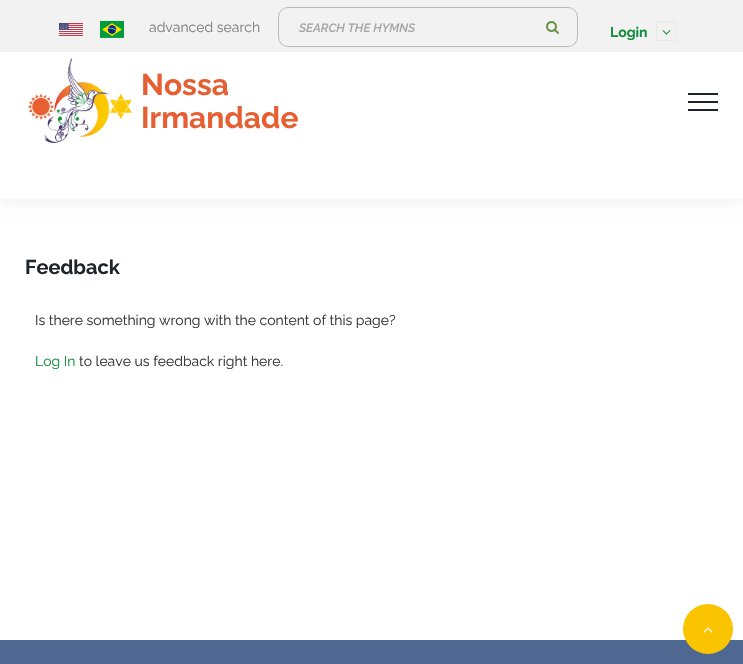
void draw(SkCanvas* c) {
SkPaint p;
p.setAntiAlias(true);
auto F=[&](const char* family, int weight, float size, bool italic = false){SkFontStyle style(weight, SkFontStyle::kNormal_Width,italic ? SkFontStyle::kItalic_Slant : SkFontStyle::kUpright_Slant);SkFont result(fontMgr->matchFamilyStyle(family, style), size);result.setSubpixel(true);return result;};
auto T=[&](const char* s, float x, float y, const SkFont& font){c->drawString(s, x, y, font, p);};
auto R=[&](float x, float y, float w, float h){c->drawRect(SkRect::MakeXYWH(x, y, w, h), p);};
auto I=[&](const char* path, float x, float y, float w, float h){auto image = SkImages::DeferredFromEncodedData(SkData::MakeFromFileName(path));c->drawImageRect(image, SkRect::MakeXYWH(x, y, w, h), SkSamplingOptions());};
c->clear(0xffffffff);
p.setColor(0x12000000);
p.setMaskFilter(SkMaskFilter::MakeBlur(kNormal_SkBlurStyle, 7.5));
c->drawRect(SkRect::MakeXYWH(0,1,743,199),p);
p.setMaskFilter(nullptr);
p.setColor(0xffffffff);
R(0,52,743,147);
p.setColor(0xfff2f2f2);
R(0,0,743,52);
I("1.png",59,23,24,13);
I("2.png",100,20,24,18);
auto f1 = F("Raleway",400,14);
p.setColor(0xff808080);
T("advanced search",149,32,f1);
p.setStroke(true);
p.setStrokeWidth(1);
p.setColor(0xffb9b9b9);
c->drawRoundRect(SkRect::MakeXYWH(278.5,7.5,299,39),9.5,9.5,p);
auto f2 = F("Raleway",600,12,true);
p.setStroke(false);
p.setColor(0xffa6a6a6);
T("SEARCH THE HYMNS",299,32,f2);
I("3.png",546,21,13,13);
auto f3 = F("Raleway",700,14);
p.setColor(0xff148c3a);
T("Login",610,37,f3);
p.setStroke(true);
p.setColor(0xffe8e9ea);
c->drawRect(SkRect::MakeXYWH(656.5,21.5,19,19),p);
I("4.png",662,30,9,5);
I("5.png",28,58,104,85);
auto f4 = F("Raleway",700,30);
p.setStroke(false);
p.setColor(0xffe65f32);
T("Nossa",141,95,f4);
T("Irmandade",141,128,f4);
p.setColor(0xff1f232b);
R(688,101,30,2);
R(688,93,30,2);
R(688,109,30,2);
auto f5 = F("Raleway",700,20);
T("Feedback",25,274,f5);
p.setColor(0xff333333);
T("Is there something wrong with the content of this page?",35,325,f1);
p.setColor(0xff148c3a);
T("Log In",35,366,f1);
p.setColor(0xff333333);
T("to leave us feedback right here.",79,366,f1);
p.setColor(0xff4e6891);
R(0,640,743,24);
p.setColor(0xfffac400);
c->drawCircle(708,629,25,p);
I("6.png",703,627,10,6);
}
